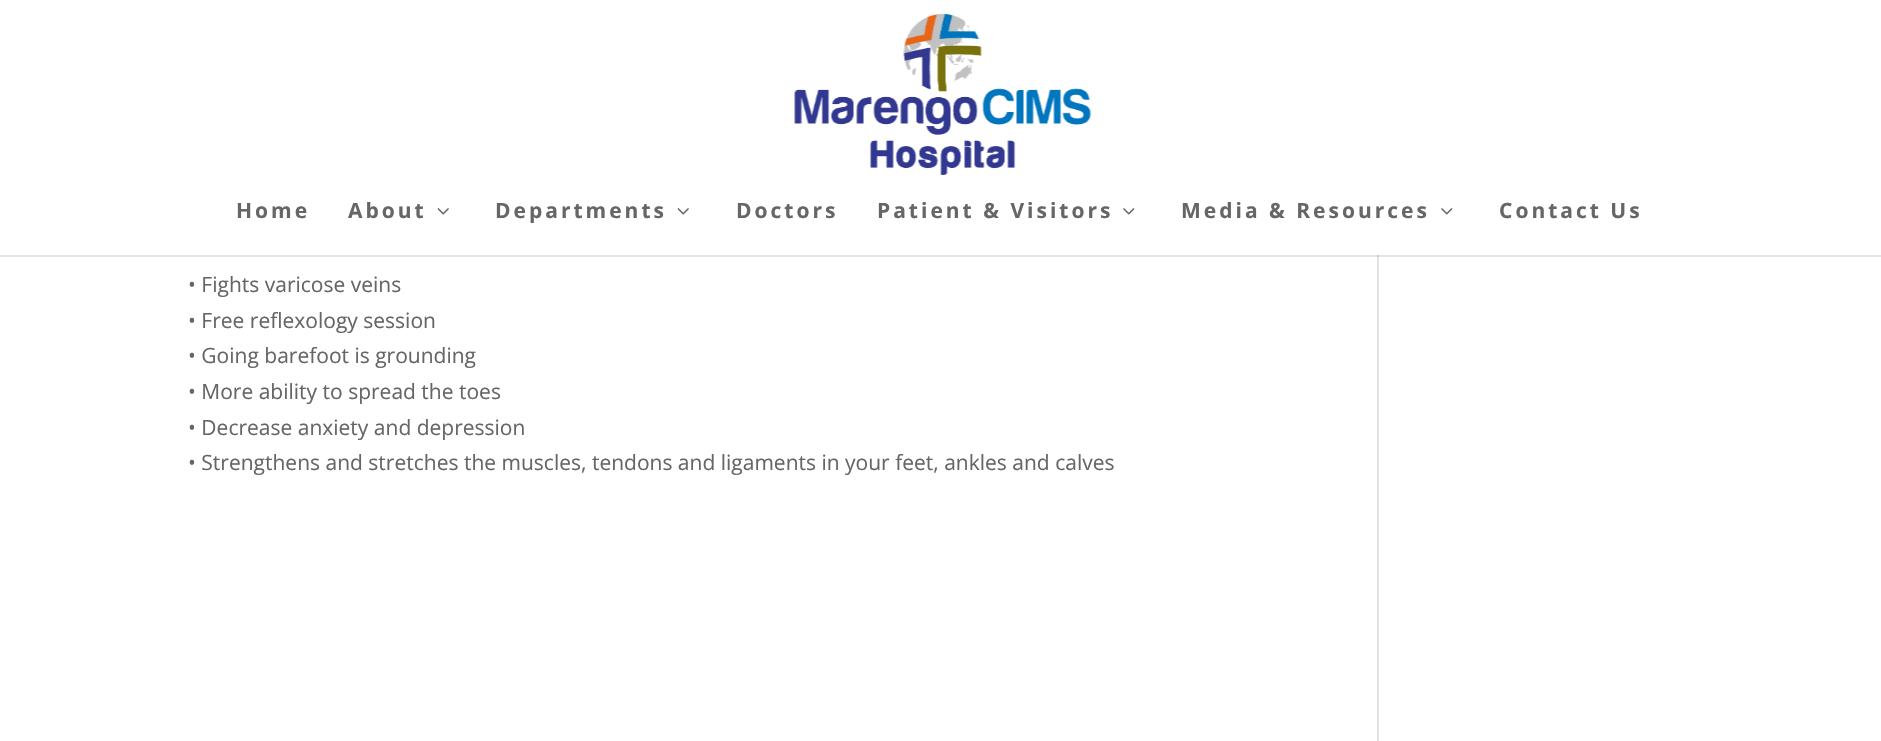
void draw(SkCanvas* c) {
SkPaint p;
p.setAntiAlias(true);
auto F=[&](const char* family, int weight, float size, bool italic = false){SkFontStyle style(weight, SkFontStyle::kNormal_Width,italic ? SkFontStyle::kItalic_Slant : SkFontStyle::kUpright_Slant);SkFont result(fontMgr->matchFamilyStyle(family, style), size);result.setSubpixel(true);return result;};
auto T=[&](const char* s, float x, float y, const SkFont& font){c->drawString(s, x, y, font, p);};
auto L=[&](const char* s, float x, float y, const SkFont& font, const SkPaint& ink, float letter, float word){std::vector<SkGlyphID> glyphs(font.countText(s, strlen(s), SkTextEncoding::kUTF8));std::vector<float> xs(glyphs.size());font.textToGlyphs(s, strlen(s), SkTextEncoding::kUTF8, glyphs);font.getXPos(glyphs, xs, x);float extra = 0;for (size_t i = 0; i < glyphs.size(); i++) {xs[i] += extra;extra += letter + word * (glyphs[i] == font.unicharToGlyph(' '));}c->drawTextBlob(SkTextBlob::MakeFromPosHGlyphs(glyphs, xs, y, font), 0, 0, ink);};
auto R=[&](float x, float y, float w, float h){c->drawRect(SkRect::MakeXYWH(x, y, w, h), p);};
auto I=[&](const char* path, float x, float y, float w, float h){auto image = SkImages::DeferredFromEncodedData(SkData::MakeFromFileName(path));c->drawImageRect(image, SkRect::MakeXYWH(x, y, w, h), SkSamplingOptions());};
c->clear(0xffffffff);
p.setColor(0xffe2e2e2);
R(1377,255,2,486);
p.setColor(0x1a000000);
R(0,255,1881,2);
I("1.png",794,13,298,162);
auto f1 = F("Open Sans",700,21);
p.setColor(0xff666666);
L("Home",236,218,f1,p,3,0);
L("About",348,218,f1,p,3,0);
I("2.png",437,208,12,7);
L("Departments",495,218,f1,p,3,0);
I("2.png",677,208,12,7);
L("Doctors",736,218,f1,p,3,0);
L("Patient & Visitors",877,218,f1,p,3,0);
I("3.png",1123,208,12,7);
L("Media & Resources",1181,218,f1,p,3,0);
I("3.png",1441,208,12,7);
L("Contact Us",1499,218,f1,p,3,0);
auto f2 = F("Open Sans",400,21);
T("• Fights varicose veins",188,292,f2);
T("• Free reflexology session",188,328,f2);
T("• Going barefoot is grounding",188,363,f2);
T("• More ability to spread the toes",188,399,f2);
T("• Decrease anxiety and depression",188,435,f2);
T("• Strengthens and stretches the muscles, tendons and ligaments in your feet, ankles and calves",188,470,f2);
}
